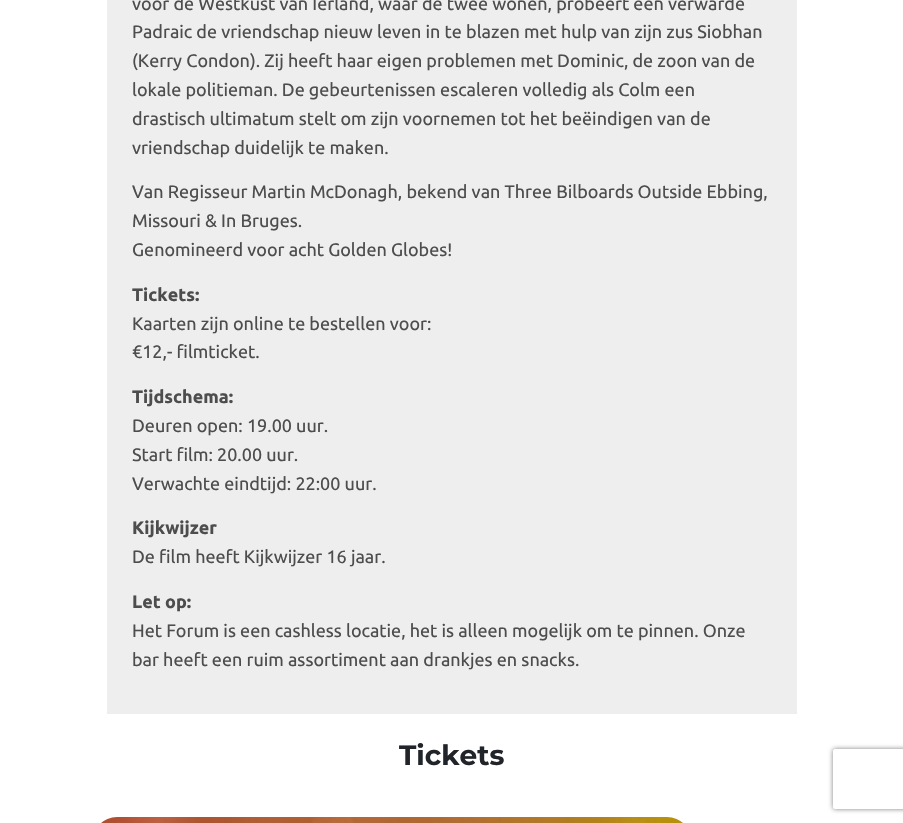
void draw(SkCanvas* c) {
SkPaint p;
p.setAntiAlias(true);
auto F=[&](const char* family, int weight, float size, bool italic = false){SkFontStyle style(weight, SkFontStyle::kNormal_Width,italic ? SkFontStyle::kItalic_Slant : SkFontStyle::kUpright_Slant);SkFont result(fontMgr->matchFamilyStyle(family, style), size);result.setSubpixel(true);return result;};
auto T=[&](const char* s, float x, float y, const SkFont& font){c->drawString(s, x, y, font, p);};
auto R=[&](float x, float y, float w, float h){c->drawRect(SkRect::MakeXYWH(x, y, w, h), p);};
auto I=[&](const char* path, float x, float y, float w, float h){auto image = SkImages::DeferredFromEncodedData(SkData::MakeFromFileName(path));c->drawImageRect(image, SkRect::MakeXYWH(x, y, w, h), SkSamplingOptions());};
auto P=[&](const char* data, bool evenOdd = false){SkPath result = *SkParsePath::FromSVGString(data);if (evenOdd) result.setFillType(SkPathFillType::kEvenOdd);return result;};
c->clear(0xffffffff);
p.setColor(0xffeeeeee);
R(107,0,690,714);
auto f1 = F("Ubuntu",400,18);
p.setColor(0xff4d4d4d);
T("voor de Westkust van Ierland, waar de twee wonen, probeert een verwarde",132,10,f1);
T("Padraic de vriendschap nieuw leven in te blazen met hulp van zijn zus Siobhan",132,38,f1);
T("(Kerry Condon). Zij heeft haar eigen problemen met Dominic, de zoon van de",132,67,f1);
T("lokale politieman. De gebeurtenissen escaleren volledig als Colm een",132,96,f1);
T("drastisch ultimatum stelt om zijn voornemen tot het beëindigen van de",132,125,f1);
T("vriendschap duidelijk te maken.",132,154,f1);
T("Van Regisseur Martin McDonagh, bekend van Three Bilboards Outside Ebbing,",132,198,f1);
T("Missouri & In Bruges.",132,227,f1);
T("Genomineerd voor acht Golden Globes!",132,256,f1);
auto f2 = F("Ubuntu",700,18);
T("Tickets:",132,301,f2);
T("Kaarten zijn online te bestellen voor:",132,330,f1);
T("€12,- filmticket.",132,358,f1);
T("Tijdschema:",132,403,f2);
T("Deuren open: 19.00 uur.",132,432,f1);
T("Start film: 20.00 uur.",132,461,f1);
T("Verwachte eindtijd: 22:00 uur.",132,490,f1);
T("Kijkwijzer",132,534,f2);
T("De film heeft Kijkwijzer 16 jaar.",132,563,f1);
T("Let op:",132,608,f2);
T("Het Forum is een cashless locatie, het is alleen mogelijk om te pinnen. Onze",132,637,f1);
T("bar heeft een ruim assortiment aan drankjes en snacks.",132,666,f1);
auto f3 = F("Montserrat",700,28);
p.setColor(0xff212529);
T("Tickets",399,765,f3);
c->save();
c->clipPath(P("M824 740h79v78h-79zm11 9h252c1 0 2 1 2 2v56c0 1-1 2-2 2h-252c-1 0-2-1-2-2v-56c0-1 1-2 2-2z",true),true);
p.setColor(0xff808080);
p.setMaskFilter(SkMaskFilter::MakeBlur(kNormal_SkBlurStyle, 2.5));
c->drawRoundRect(SkRect::MakeXYWH(833,749,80,60),2,2,p);
p.setMaskFilter(nullptr);
c->restore();
I("1.png",101,817,582,6);
}
